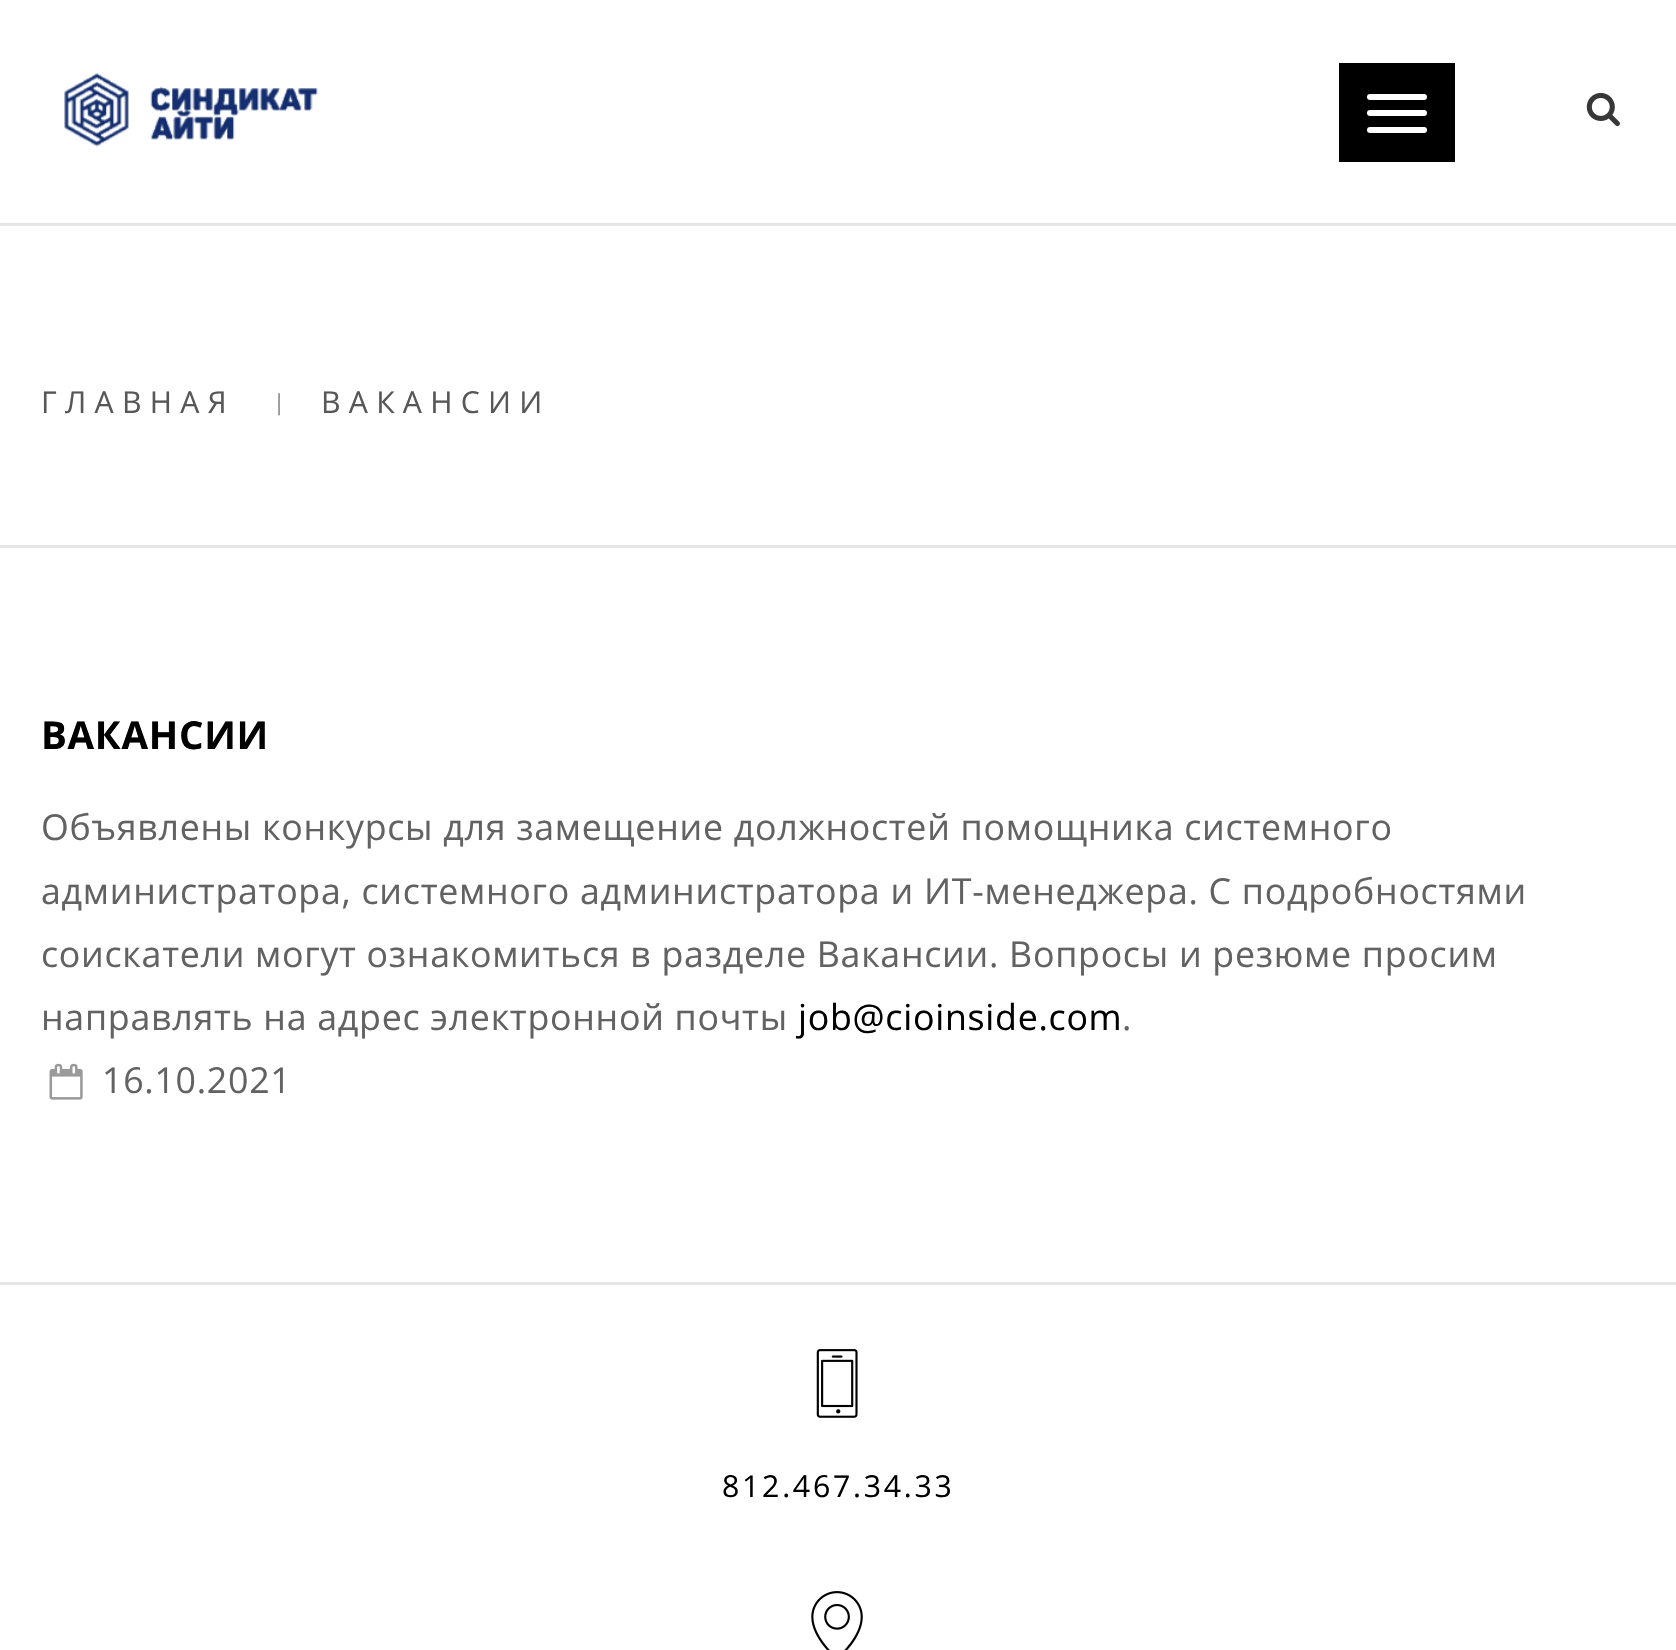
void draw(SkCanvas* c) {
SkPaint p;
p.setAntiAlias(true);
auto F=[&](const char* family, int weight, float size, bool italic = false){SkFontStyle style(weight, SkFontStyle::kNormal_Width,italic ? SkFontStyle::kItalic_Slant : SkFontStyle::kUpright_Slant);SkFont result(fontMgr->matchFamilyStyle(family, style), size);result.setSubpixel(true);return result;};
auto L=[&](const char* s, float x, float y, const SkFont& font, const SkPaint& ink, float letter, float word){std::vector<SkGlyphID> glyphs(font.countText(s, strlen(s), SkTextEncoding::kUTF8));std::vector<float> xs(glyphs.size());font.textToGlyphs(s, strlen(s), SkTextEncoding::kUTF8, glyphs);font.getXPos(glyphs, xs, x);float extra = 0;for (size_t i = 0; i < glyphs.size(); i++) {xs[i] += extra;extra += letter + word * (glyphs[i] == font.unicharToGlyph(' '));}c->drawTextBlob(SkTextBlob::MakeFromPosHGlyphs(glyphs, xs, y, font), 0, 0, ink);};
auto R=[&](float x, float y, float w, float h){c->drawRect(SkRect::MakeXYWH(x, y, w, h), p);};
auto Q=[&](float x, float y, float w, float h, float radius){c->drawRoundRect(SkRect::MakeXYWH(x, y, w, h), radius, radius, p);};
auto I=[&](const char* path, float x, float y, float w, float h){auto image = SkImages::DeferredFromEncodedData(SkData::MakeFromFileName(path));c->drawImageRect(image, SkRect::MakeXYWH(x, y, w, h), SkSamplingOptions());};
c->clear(0xffffffff);
I("1.png",64,73,254,74);
p.setColor(0xff000000);
R(1339,63,116,99);
p.setColor(0xffffffff);
Q(1367,94,60,6,3);
Q(1367,110,60,6,3);
Q(1367,127,60,6,3);
I("2.png",1586,92,34,35);
p.setColor(0xffe6e6e6);
R(0,223,1676,3);
R(0,545,1676,3);
auto f1 = F("Open Sans",400,30.25);
p.setColor(0xff575757);
L("ГЛАВНАЯ",41,413,f1,p,8.25,0);
auto f2 = F("Open Sans",400,22);
p.setColor(0xff898989);
L("|",273,410,f2,p,8.25,0);
p.setColor(0xff575757);
L("ВАКАНСИИ",321,413,f1,p,8.25,0);
auto f3 = F("Open Sans",700,38.5);
p.setColor(0xff000000);
L("ВАКАНСИИ",41,749,f3,p,.72,0);
auto f4 = F("Open Sans",400,35.75);
p.setColor(0xff626262);
L("Объявлены конкурсы для замещение должностей помощника системного",41,840,f4,p,.72,0);
L("администратора, системного администратора и ИТ-менеджера. С подробностями",41,904,f4,p,.72,0);
L("соискатели могут ознакомиться в разделе Вакансии. Вопросы и резюме просим",41,967,f4,p,.72,0);
L("направлять на адрес электронной почты",41,1030,f4,p,.72,0);
p.setColor(0xff000000);
L("job@cioinside.com",798,1030,f4,p,.72,0);
p.setColor(0xff626262);
L(".",1122,1030,f4,p,.72,0);
I("3.png",49,1063,34,37);
L("16.10.2021",102,1093,f4,p,.72,0);
p.setColor(0xffe5e5e5);
R(0,1282,1676,3);
I("4.png",816,1349,42,69);
p.setColor(0xff000000);
L("812.467.34.33",722,1497,f1,p,2.75,0);
I("5.png",811,1591,52,59);
}
